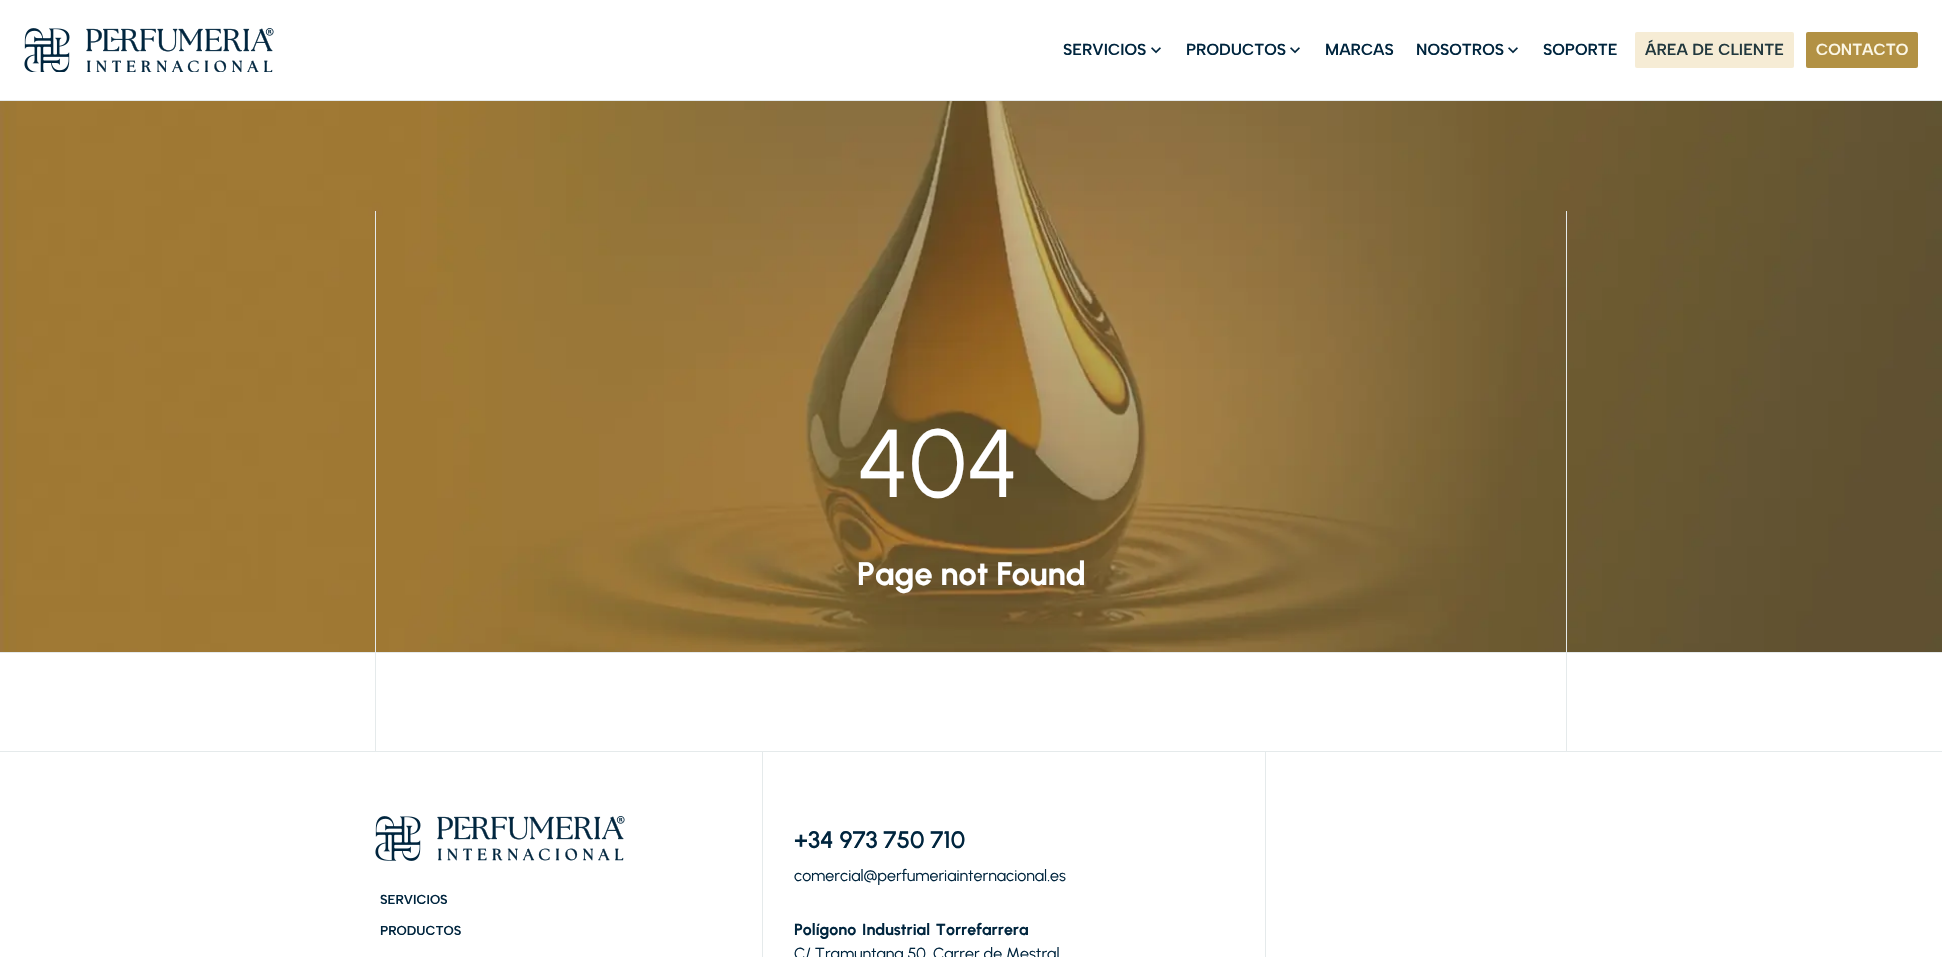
void draw(SkCanvas* c) {
SkPaint p;
p.setAntiAlias(true);
auto F=[&](const char* family, int weight, float size, bool italic = false){SkFontStyle style(weight, SkFontStyle::kNormal_Width,italic ? SkFontStyle::kItalic_Slant : SkFontStyle::kUpright_Slant);SkFont result(fontMgr->matchFamilyStyle(family, style), size);result.setSubpixel(true);return result;};
auto T=[&](const char* s, float x, float y, const SkFont& font){c->drawString(s, x, y, font, p);};
auto L=[&](const char* s, float x, float y, const SkFont& font, const SkPaint& ink, float letter, float word){std::vector<SkGlyphID> glyphs(font.countText(s, strlen(s), SkTextEncoding::kUTF8));std::vector<float> xs(glyphs.size());font.textToGlyphs(s, strlen(s), SkTextEncoding::kUTF8, glyphs);font.getXPos(glyphs, xs, x);float extra = 0;for (size_t i = 0; i < glyphs.size(); i++) {xs[i] += extra;extra += letter + word * (glyphs[i] == font.unicharToGlyph(' '));}c->drawTextBlob(SkTextBlob::MakeFromPosHGlyphs(glyphs, xs, y, font), 0, 0, ink);};
auto R=[&](float x, float y, float w, float h){c->drawRect(SkRect::MakeXYWH(x, y, w, h), p);};
auto Q=[&](float x, float y, float w, float h, float radius){c->drawRoundRect(SkRect::MakeXYWH(x, y, w, h), radius, radius, p);};
auto I=[&](const char* path, float x, float y, float w, float h){auto image = SkImages::DeferredFromEncodedData(SkData::MakeFromFileName(path));c->drawImageRect(image, SkRect::MakeXYWH(x, y, w, h), SkSamplingOptions());};
c->clear(0xffffffff);
p.setColor(0xffe5eaeb);
R(0,100,1942,1);
I("1.png",24,28,250,44);
auto f1 = F("Albert Sans",600,16);
p.setColor(0xff00253e);
T("SERVICIOS",1063,55,f1);
I("2.png",1151,47,10,7);
T("PRODUCTOS",1186,55,f1);
I("2.png",1290,47,10,7);
T("MARCAS",1325,55,f1);
T("NOSOTROS",1416,55,f1);
I("2.png",1508,47,10,7);
T("SOPORTE",1543,55,f1);
p.setColor(0xfff6ecd5);
Q(1635,32,159,36,2);
p.setColor(0xff21383e);
T("ÁREA DE CLIENTE",1645,55,f1);
p.setColor(0xffb29144);
Q(1806,32,112,36,2);
p.setColor(0xfffcf7e6);
T("CONTACTO",1816,55,f1);
I("3.png",0,101,1942,551);
p.setColor(0xffe5eaeb);
R(375,211,1,540);
auto f2 = F("Urbanist",400,96);
p.setColor(0xffffffff);
T("404",857,497,f2);
auto f3 = F("Urbanist",700,32.5);
T("Page not Found",857,585,f3);
p.setColor(0xffe5eaeb);
R(1566,211,1,540);
R(0,652,1942,1);
R(0,751,1942,1);
I("4.png",375,816,250,45);
auto f4 = F("Albert Sans",600,13);
p.setColor(0xff00253e);
T("SERVICIOS",380,904,f4);
T("PRODUCTOS",380,935,f4);
p.setColor(0xffe5eaeb);
R(762,752,1,205);
auto f5 = F("Urbanist",600,24);
p.setColor(0xff00253e);
T("+34 973 750 710",794,848,f5);
auto f6 = F("Urbanist",400,16);
T("comercial@perfumeriainternacional.es",794,881,f6);
auto f7 = F("Urbanist",700,16);
L("Polígono Industrial Torrefarrera",794,935,f7,p,0,2);
T("C/ Tramuntana 50, Carrer de Mestral",794,959,f6);
p.setColor(0xffe5eaeb);
R(1265,752,1,205);
}
